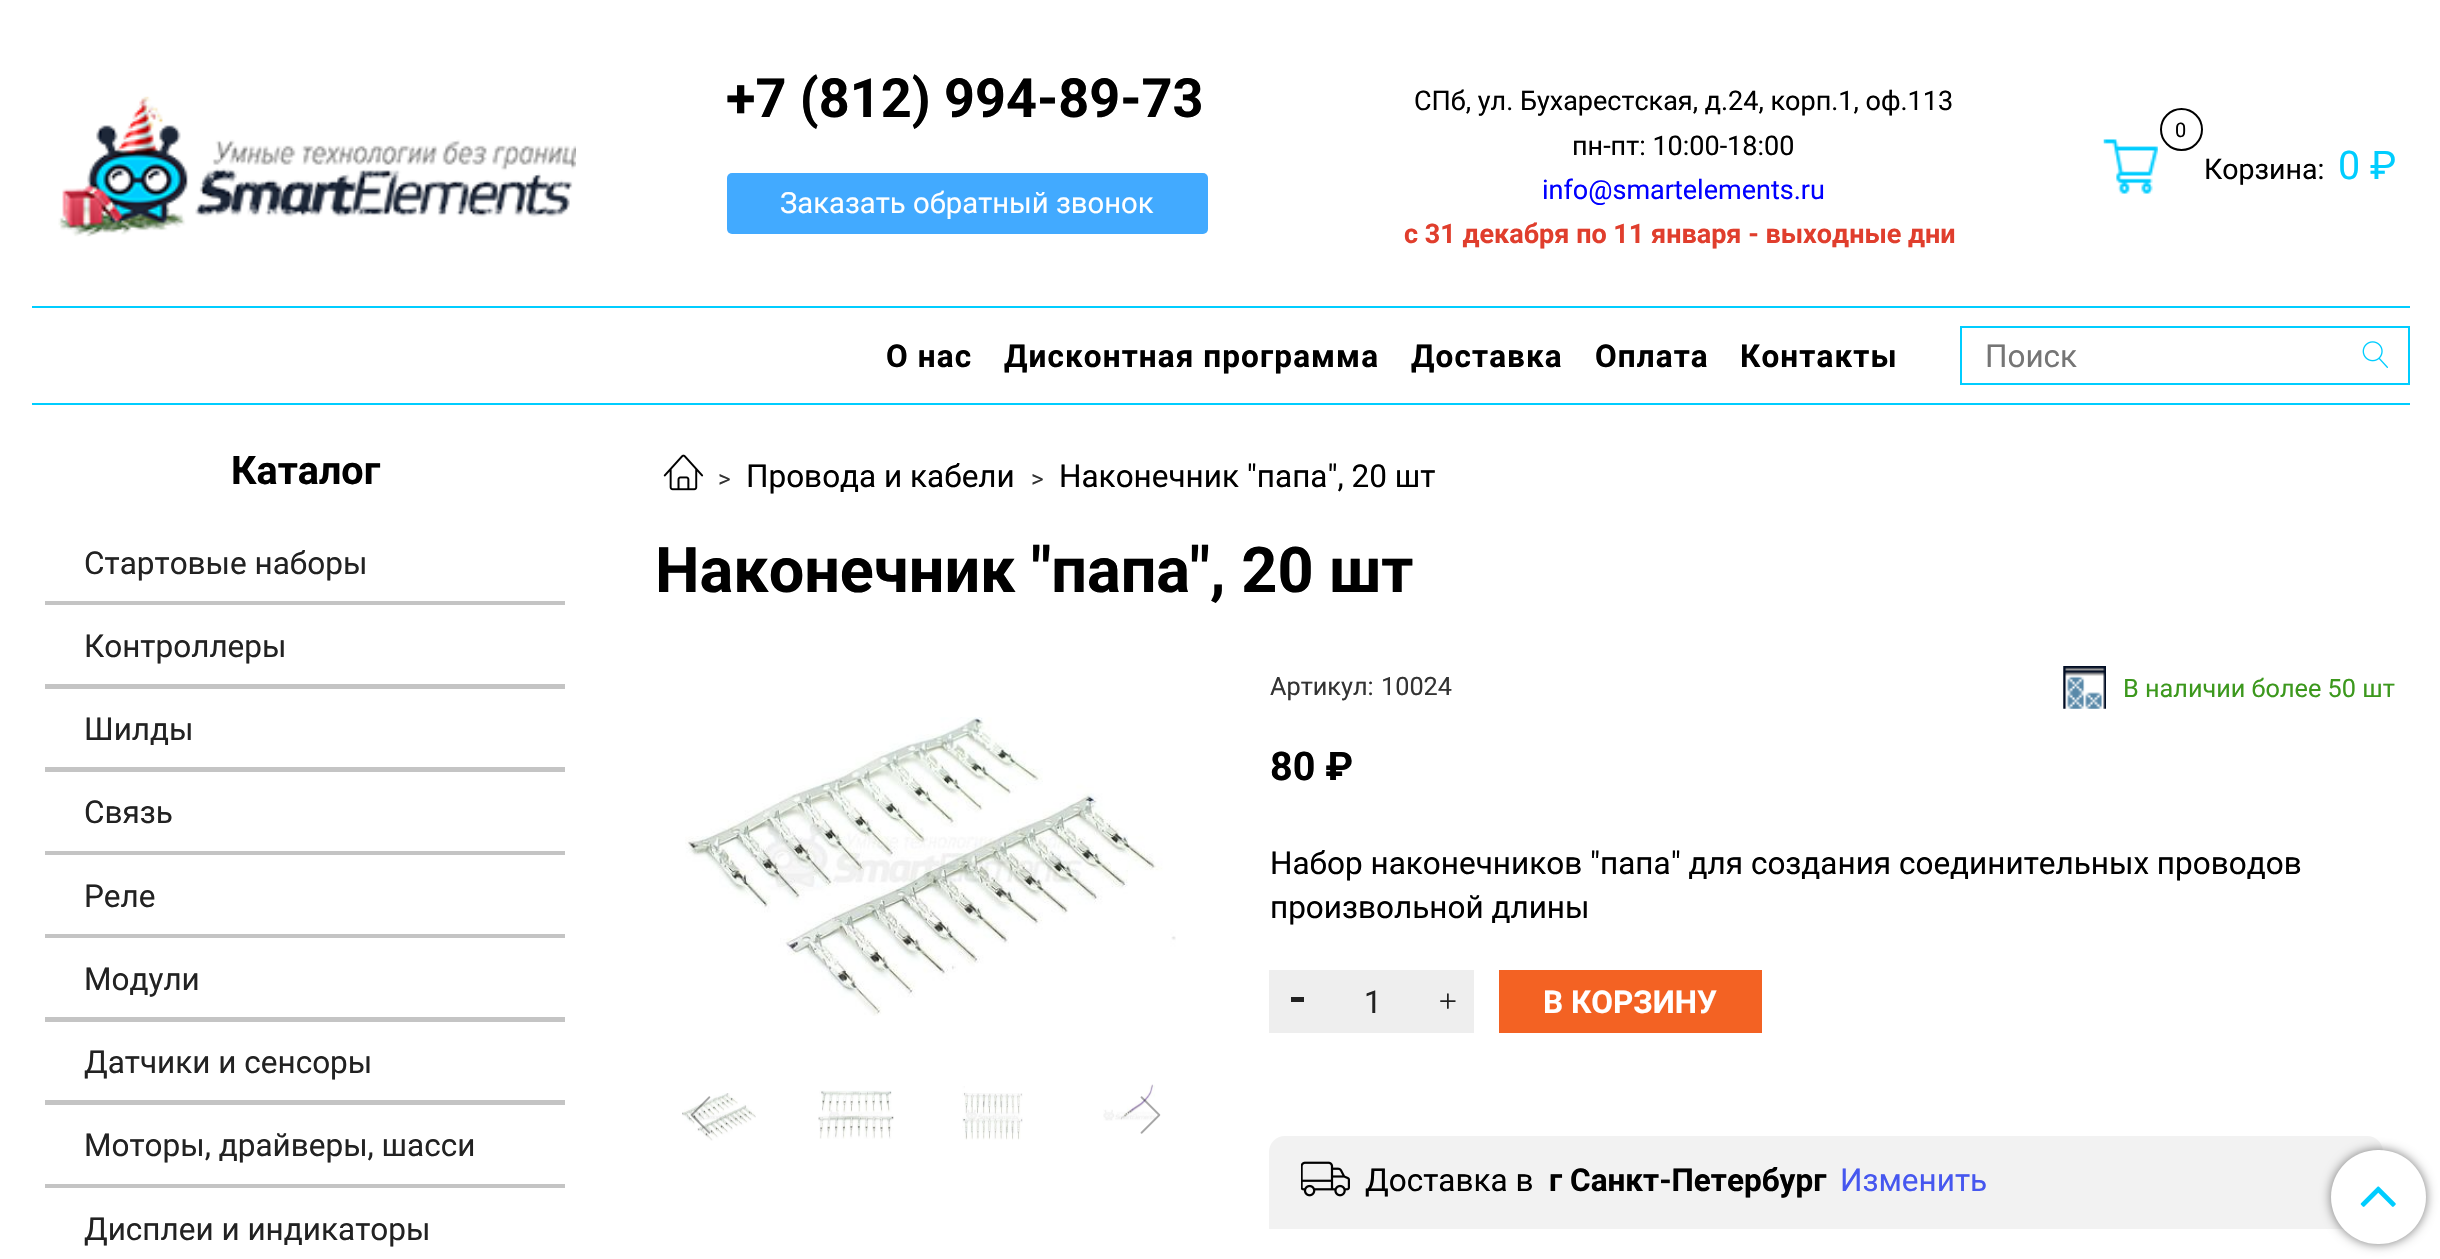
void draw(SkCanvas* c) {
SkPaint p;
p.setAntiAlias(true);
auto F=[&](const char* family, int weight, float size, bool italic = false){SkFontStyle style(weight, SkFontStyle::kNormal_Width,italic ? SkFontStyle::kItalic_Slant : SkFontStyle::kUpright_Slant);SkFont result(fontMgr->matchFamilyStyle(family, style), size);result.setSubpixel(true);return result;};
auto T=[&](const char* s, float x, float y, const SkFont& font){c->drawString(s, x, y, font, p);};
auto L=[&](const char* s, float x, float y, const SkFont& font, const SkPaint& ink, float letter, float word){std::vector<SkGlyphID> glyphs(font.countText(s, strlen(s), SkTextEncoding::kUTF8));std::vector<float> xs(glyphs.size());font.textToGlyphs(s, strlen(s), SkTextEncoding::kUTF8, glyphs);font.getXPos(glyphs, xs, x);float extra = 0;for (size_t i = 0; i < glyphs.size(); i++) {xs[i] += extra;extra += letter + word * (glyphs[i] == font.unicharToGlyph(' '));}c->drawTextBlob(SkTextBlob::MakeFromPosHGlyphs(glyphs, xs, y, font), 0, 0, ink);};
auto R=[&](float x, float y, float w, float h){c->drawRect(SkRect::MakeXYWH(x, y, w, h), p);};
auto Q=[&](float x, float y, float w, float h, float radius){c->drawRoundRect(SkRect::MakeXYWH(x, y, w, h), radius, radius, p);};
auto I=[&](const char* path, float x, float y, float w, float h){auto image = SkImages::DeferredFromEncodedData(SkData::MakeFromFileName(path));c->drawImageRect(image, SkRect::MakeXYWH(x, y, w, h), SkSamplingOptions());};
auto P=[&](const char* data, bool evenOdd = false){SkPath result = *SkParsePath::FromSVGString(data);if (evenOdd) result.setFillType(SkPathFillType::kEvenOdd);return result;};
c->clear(0xffffffff);
I("1.png",58,96,518,141);
auto f1 = F("Roboto",700,54);
p.setColor(0xff000000);
T("+7 (812) 994-89-73",726,117,f1);
p.setColor(0xff42aaff);
Q(727,173,481,61,5);
auto f2 = F("Roboto",400,29.25);
p.setColor(0xffffffff);
T("Заказать обратный звонок",780,213,f2);
auto f3 = F("Roboto",400,27);
p.setColor(0xff000000);
T("СПб, ул. Бухарестская, д.24, корп.1, оф.113",1414,110,f3);
T("пн-пт: 10:00-18:00",1572,155,f3);
p.setColor(0xff0000ff);
T("info@smartelements.ru",1542,199,f3);
auto f4 = F("Roboto",700,27);
p.setColor(0xffe03e2d);
T("с 31 декабря по 11 января - выходные дни",1404,243,f4);
p.setStroke(true);
p.setStrokeWidth(2);
p.setColor(0xff000000);
c->drawCircle(2181.5,129.5,20.5,p);
auto f5 = F("Roboto",400,20);
p.setStroke(false);
T("0",2175,137,f5);
I("2.png",2103,139,55,55);
auto f6 = F("Roboto",400,28.5);
T("Корзина:",2204,179,f6);
auto f7 = F("Roboto",400,39.5);
p.setColor(0xff00cdff);
T("0 ₽",2338,179,f7);
R(32,306,2378,2);
R(32,403,2378,2);
auto f8 = F("Roboto",700,31.5);
p.setColor(0xff000000);
L("О нас",886,367,f8,p,1.1,0);
L("Дисконтная программа",1004,367,f8,p,1.1,0);
L("Доставка",1411,367,f8,p,1.1,0);
L("Оплата",1595,367,f8,p,1.1,0);
L("Контакты",1740,367,f8,p,1.1,0);
p.setStroke(true);
p.setColor(0xff00cdff);
c->drawRect(SkRect::MakeXYWH(1961,327,448,57),p);
auto f9 = F("Roboto",400,31.5);
p.setStroke(false);
p.setColor(0xff757575);
T("Поиск",1985,367,f9);
I("3.png",2362,341,26,27);
auto f10 = F("Roboto",700,39.5);
p.setColor(0xff000000);
T("Каталог",231,484,f10);
p.setColor(0xffc4c4c4);
R(45,601,520,4);
p.setColor(0xff222222);
T("Стартовые наборы",84,574,f9);
p.setColor(0xffc4c4c4);
R(45,684,520,5);
p.setColor(0xff222222);
T("Контроллеры",84,657,f9);
p.setColor(0xffc4c4c4);
R(45,767,520,5);
p.setColor(0xff222222);
T("Шилды",84,740,f9);
p.setColor(0xffc4c4c4);
R(45,851,520,4);
p.setColor(0xff222222);
T("Связь",84,823,f9);
p.setColor(0xffc4c4c4);
R(45,934,520,4);
p.setColor(0xff222222);
T("Реле",84,907,f9);
p.setColor(0xffc4c4c4);
R(45,1017,520,5);
p.setColor(0xff222222);
T("Модули",84,990,f9);
p.setColor(0xffc4c4c4);
R(45,1100,520,5);
p.setColor(0xff222222);
T("Датчики и сенсоры",84,1073,f9);
p.setColor(0xffc4c4c4);
R(45,1184,520,4);
p.setColor(0xff222222);
T("Моторы, драйверы, шасси",84,1156,f9);
T("Дисплеи и индикаторы",84,1240,f9);
I("4.png",663,454,41,37);
auto f11 = F("Roboto",400,24);
p.setColor(0xff333333);
T(">",718,487,f11);
p.setColor(0xff000000);
T("Провода и кабели",746,487,f9);
p.setColor(0xff333333);
T(">",1031,487,f11);
p.setColor(0xff000000);
T("Наконечник \"папа\", 20 шт",1059,487,f9);
auto f12 = F("Roboto",700,63);
T("Наконечник \"папа\", 20 шт",655,592,f12);
I("5.png",685,717,491,299);
I("6.png",682,1093,74,48);
I("7.png",818,1090,76,49);
I("8.png",962,1086,61,54);
I("9.png",1103,1084,53,37);
I("10.png",690,1096,21,38);
I("11.png",1140,1096,21,38);
auto f13 = F("Roboto",400,25.25);
p.setColor(0xff333333);
T("Артикул:",1270,695,f13);
T("10024",1381,695,f13);
I("12.png",2063,666,43,43);
p.setColor(0xff3c981d);
T("В наличии более 50 шт",2123,697,f13);
p.setColor(0xff000000);
T("80 ₽",1270,780,f10);
T("Набор наконечников \"папа\" для создания соединительных проводов",1270,874,f9);
T("произвольной длины",1270,918,f9);
p.setColor(0xffeeeeee);
R(1269,970,205,63);
p.setColor(0xff222222);
R(1291,997,13,5);
T("1",1364,1013,f9);
I("13.png",1440,993,16,16);
p.setColor(0xfff36223);
R(1499,970,263,63);
p.setColor(0xffffffff);
T("В КОРЗИНУ",1543,1013,f8);
p.setColor(0xfff2f2f2);
c->drawPath(P("M1285 1136h1082c9 0 16 7 16 16v77h-1114v-77c0-9 7-16 16-16z"),p);
I("14.png",1301,1161,49,36);
p.setColor(0xff000000);
T("Доставка в",1365,1191,f9);
T("г Санкт-Петербург",1549,1191,f8);
p.setColor(0xff4657ef);
T("Изменить",1840,1191,f9);
p.setColor(0xff777777);
p.setMaskFilter(SkMaskFilter::MakeBlur(kNormal_SkBlurStyle, 5.5));
c->drawRoundRect(SkRect::MakeXYWH(2331,1150,95,94),47,47,p);
p.setMaskFilter(nullptr);
p.setColor(0xffffffff);
Q(2331,1150,95,94,47);
I("15.png",2360,1186,36,21);
}
